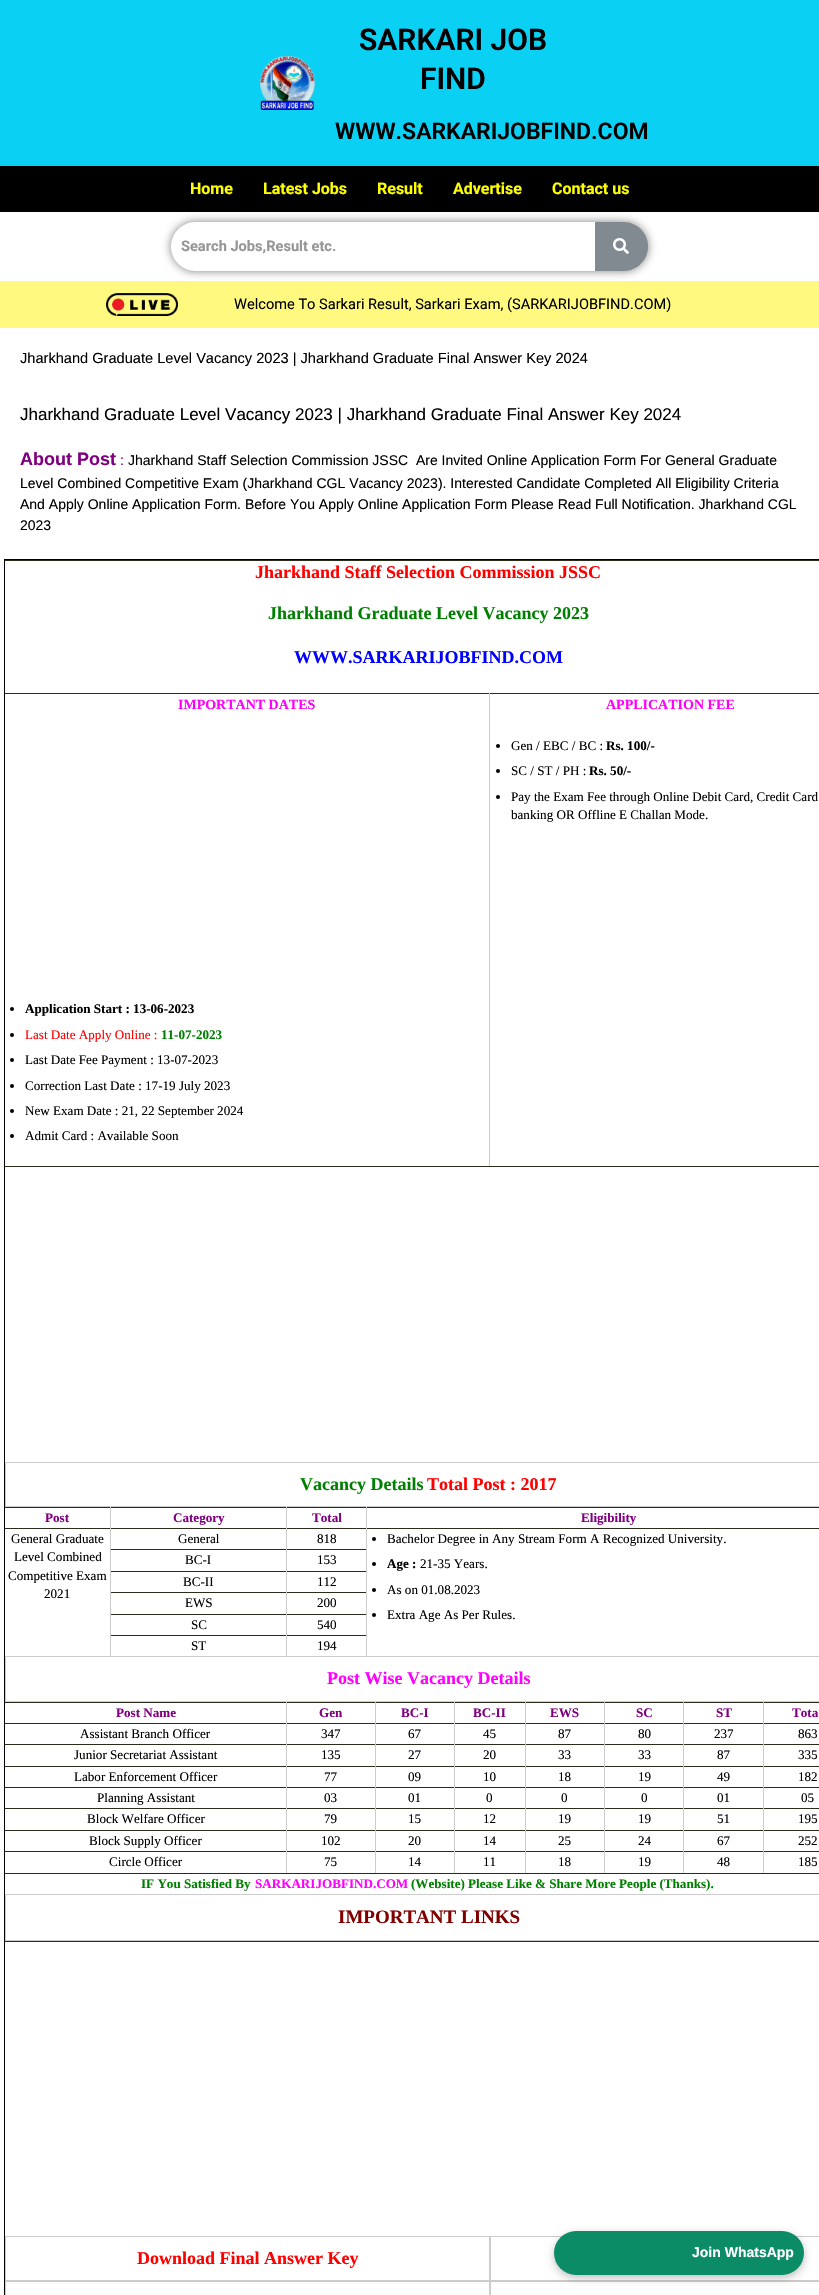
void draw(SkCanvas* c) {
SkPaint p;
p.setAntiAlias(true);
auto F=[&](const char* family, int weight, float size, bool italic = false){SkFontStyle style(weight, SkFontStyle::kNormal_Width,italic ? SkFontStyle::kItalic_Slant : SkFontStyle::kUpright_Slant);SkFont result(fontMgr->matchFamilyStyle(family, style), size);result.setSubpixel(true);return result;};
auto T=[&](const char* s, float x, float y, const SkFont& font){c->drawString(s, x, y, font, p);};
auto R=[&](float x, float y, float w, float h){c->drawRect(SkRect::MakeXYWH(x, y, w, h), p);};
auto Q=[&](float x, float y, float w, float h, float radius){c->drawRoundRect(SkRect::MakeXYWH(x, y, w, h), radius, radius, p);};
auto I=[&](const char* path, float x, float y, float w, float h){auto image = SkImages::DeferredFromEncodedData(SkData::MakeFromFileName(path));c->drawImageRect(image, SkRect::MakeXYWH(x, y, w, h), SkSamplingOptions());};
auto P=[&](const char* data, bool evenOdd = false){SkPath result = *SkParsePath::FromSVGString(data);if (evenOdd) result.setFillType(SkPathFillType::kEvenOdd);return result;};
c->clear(0xffffffff);
p.setColor(0xff0ad0f4);
R(0,0,819,166);
I("1.png",260,55,55,55);
auto f1 = F("Roboto",600,30);
p.setColor(0xff000000);
T("SARKARI JOB",359,50,f1);
T("FIND",420,89,f1);
auto f2 = F("Roboto",600,23);
T("WWW.SARKARIJOBFIND.COM",335,139,f2);
R(0,166,819,46);
auto f3 = F("Roboto",700,16);
p.setColor(0xfffeff04);
T("Home",190,194,f3);
T("Latest Jobs",263,194,f3);
T("Result",377,194,f3);
T("Advertise",453,194,f3);
T("Contact us",552,194,f3);
p.setColor(0x80000000);
p.setMaskFilter(SkMaskFilter::MakeBlur(kNormal_SkBlurStyle, 5));
c->drawRoundRect(SkRect::MakeXYWH(171,222,477,49),24.5,24.5,p);
p.setMaskFilter(nullptr);
p.setColor(0xffffffff);
c->drawPath(P("M195.5 222h399.5v49h-399.5c-13.5 0-24.5-11-24.5-24.5c0-13.5 11-24.5 24.5-24.5z"),p);
auto f4 = F("Roboto",700,14.6);
p.setColor(0xff959595);
T("Search Jobs,Result etc.",181,251,f4);
p.setColor(0xff818a91);
c->drawPath(P("M595 222h28.5c13.5 0 24.5 11 24.5 24.5c0 13.5-11 24.5-24.5 24.5h-28.5z"),p);
I("2.png",613,238,16,16);
p.setColor(0xfffffa7f);
R(0,281,819,47);
I("3.png",106,293,72,23);
auto f5 = F("Roboto",400,14.6);
p.setColor(0xff000000);
T("Welcome To Sarkari Result, Sarkari Exam, (SARKARIJOBFIND.COM)",234,309,f5);
auto f6 = F("Liberation Sans",400,14.6);
T("Jharkhand Graduate Level Vacancy 2023 | Jharkhand Graduate Final Answer Key 2024",20,363,f6);
auto f7 = F("Liberation Sans",400,17);
T("Jharkhand Graduate Level Vacancy 2023 | Jharkhand Graduate Final Answer Key 2024",20,420,f7);
auto f8 = F("Liberation Sans",700,18);
p.setColor(0xff800080);
T("About Post",20,465,f8);
auto f9 = F("Liberation Sans",400,14);
T(":",120,465,f9);
p.setColor(0xff000000);
T("Jharkhand Staff Selection Commission JSSC  Are Invited Online Application Form For General Graduate",128,465,f9);
T("Level Combined Competitive Exam (Jharkhand CGL Vacancy 2023). Interested Candidate Completed All Eligibility Criteria",20,488,f9);
T("And Apply Online Application Form. Before You Apply Online Application Form Please Read Full Notification. Jharkhand CGL",20,509,f9);
T("2023",20,530,f9);
p.setStroke(true);
p.setStrokeWidth(1);
c->drawRect(SkRect::MakeXYWH(4.5,559.5,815,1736),p);
p.setStroke(false);
p.setColor(0xff2c2c1c);
R(5,560,814,1);
auto f10 = F("Liberation Serif",700,18);
p.setColor(0xffff0000);
T("Jharkhand Staff Selection Commission JSSC",255,578,f10);
p.setColor(0xff008000);
T("Jharkhand Graduate Level Vacancy 2023",268,619,f10);
p.setColor(0xff0000ff);
T("WWW.SARKARIJOBFIND.COM",294,663,f10);
p.setColor(0xff2c2c1c);
R(5,693,814,1);
p.setColor(0xffcccccc);
R(489,693,1,473);
auto f11 = F("Liberation Serif",700,14);
p.setColor(0xffff00ff);
T("IMPORTANT DATES",178,709,f11);
p.setColor(0xff000000);
c->drawCircle(12,1009,2,p);
auto f12 = F("Liberation Serif",700,13.1);
T("Application Start : 13-06-2023",25,1013,f12);
c->drawCircle(12,1035,2,p);
auto f13 = F("Liberation Serif",400,13.1);
p.setColor(0xffff0000);
T("Last Date Apply Online :",25,1039,f13);
p.setColor(0xff008000);
T("11-07-2023",161,1039,f12);
p.setColor(0xff000000);
c->drawCircle(12,1060,2,p);
T("Last Date Fee Payment : 13-07-2023",25,1064,f13);
c->drawCircle(12,1086,2,p);
T("Correction Last Date : 17-19 July 2023",25,1090,f13);
c->drawCircle(12,1111,2,p);
T("New Exam Date : 21, 22 September 2024",25,1115,f13);
c->drawCircle(12,1136,2,p);
T("Admit Card : Available Soon",25,1140,f13);
p.setColor(0xffff00ff);
T("APPLICATION FEE",606,709,f11);
p.setColor(0xff000000);
c->drawCircle(498,746,2,p);
T("Gen / EBC / BC :",511,750,f13);
T("Rs. 100/-",606,750,f12);
c->drawCircle(498,771,2,p);
T("SC / ST / PH :",511,775,f13);
T("Rs. 50/-",589,775,f12);
c->drawCircle(498,797,2,p);
T("Pay the Exam Fee through Online Debit Card, Credit Card",511,801,f13);
T("banking OR Offline E Challan Mode.",511,819,f13);
p.setColor(0xff2c2c1c);
R(5,1166,814,1);
p.setStroke(true);
p.setColor(0xffcccccc);
c->drawRect(SkRect::MakeXYWH(5.5,1462.5,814,44),p);
p.setStroke(false);
p.setColor(0xff008000);
T("Vacancy Details",300,1490,f10);
p.setColor(0xffff0000);
T("Total Post : 2017",427,1490,f10);
p.setColor(0xff2c2c1c);
R(5,1507,814,1);
p.setColor(0xffcccccc);
R(110,1507,1,21);
p.setColor(0xff800080);
T("Post",45,1522,f12);
p.setColor(0xffcccccc);
R(286,1507,1,21);
p.setColor(0xff800080);
T("Category",173,1522,f12);
p.setColor(0xffcccccc);
R(366,1507,1,21);
p.setColor(0xff800080);
T("Total",312,1522,f12);
T("Eligibility",581,1522,f12);
p.setColor(0xff2c2c1c);
R(5,1528,814,1);
p.setColor(0xffcccccc);
R(110,1528,1,128);
p.setColor(0xff000000);
T("General Graduate",11,1543,f13);
T("Level Combined",14,1561,f13);
T("Competitive Exam",8,1580,f13);
T("2021",44,1598,f13);
p.setColor(0xffcccccc);
R(286,1528,1,21);
p.setColor(0xff000000);
T("General",178,1543,f13);
p.setColor(0xffcccccc);
R(366,1528,1,21);
p.setColor(0xff000000);
T("818",317,1543,f13);
c->drawCircle(374,1539,2,p);
T("Bachelor Degree in Any Stream Form A Recognized University.",387,1543,f13);
c->drawCircle(374,1564,2,p);
T("Age :",387,1568,f12);
T("21-35 Years.",420,1568,f13);
c->drawCircle(374,1590,2,p);
T("As on 01.08.2023",387,1594,f13);
c->drawCircle(374,1615,2,p);
T("Extra Age As Per Rules.",387,1619,f13);
p.setColor(0xff2c2c1c);
R(111,1549,256,1);
p.setColor(0xffcccccc);
R(286,1549,1,22);
p.setColor(0xff000000);
T("BC-I",185,1564,f13);
p.setColor(0xffcccccc);
R(366,1549,1,22);
p.setColor(0xff000000);
T("153",317,1564,f13);
p.setColor(0xff2c2c1c);
R(111,1571,256,1);
p.setColor(0xffcccccc);
R(286,1571,1,21);
p.setColor(0xff000000);
T("BC-II",183,1586,f13);
p.setColor(0xffcccccc);
R(366,1571,1,21);
p.setColor(0xff000000);
T("112",317,1586,f13);
p.setColor(0xff2c2c1c);
R(111,1592,256,1);
p.setColor(0xffcccccc);
R(286,1592,1,22);
p.setColor(0xff000000);
T("EWS",185,1607,f13);
p.setColor(0xffcccccc);
R(366,1592,1,22);
p.setColor(0xff000000);
T("200",317,1607,f13);
p.setColor(0xff2c2c1c);
R(111,1614,256,1);
p.setColor(0xffcccccc);
R(286,1614,1,21);
p.setColor(0xff000000);
T("SC",191,1629,f13);
p.setColor(0xffcccccc);
R(366,1614,1,21);
p.setColor(0xff000000);
T("540",317,1629,f13);
p.setColor(0xff2c2c1c);
R(111,1635,256,1);
p.setColor(0xffcccccc);
R(286,1635,1,21);
p.setColor(0xff000000);
T("ST",191,1650,f13);
p.setColor(0xffcccccc);
R(366,1635,1,21);
p.setColor(0xff000000);
T("194",317,1650,f13);
p.setStroke(true);
p.setColor(0xffcccccc);
c->drawRect(SkRect::MakeXYWH(5.5,1656.5,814,45),p);
p.setStroke(false);
p.setColor(0xffff00ff);
T("Post Wise Vacancy Details",327,1684,f10);
p.setColor(0xff2c2c1c);
R(5,1702,814,1);
p.setColor(0xffcccccc);
R(286,1702,1,21);
p.setColor(0xff800080);
T("Post Name",116,1717,f12);
p.setColor(0xffcccccc);
R(375,1702,1,21);
p.setColor(0xff800080);
T("Gen",319,1717,f12);
p.setColor(0xffcccccc);
R(454,1702,1,21);
p.setColor(0xff800080);
T("BC-I",401,1717,f12);
p.setColor(0xffcccccc);
R(525,1702,1,21);
p.setColor(0xff800080);
T("BC-II",473,1717,f12);
p.setColor(0xffcccccc);
R(604,1702,1,21);
p.setColor(0xff800080);
T("EWS",550,1717,f12);
p.setColor(0xffcccccc);
R(683,1702,1,21);
p.setColor(0xff800080);
T("SC",636,1717,f12);
p.setColor(0xffcccccc);
R(763,1702,1,21);
p.setColor(0xff800080);
T("ST",716,1717,f12);
T("Tota",792,1717,f12);
p.setColor(0xff2c2c1c);
R(5,1723,814,1);
p.setColor(0xffcccccc);
R(286,1723,1,21);
p.setColor(0xff000000);
T("Assistant Branch Officer",80,1738,f13);
p.setColor(0xffcccccc);
R(375,1723,1,21);
p.setColor(0xff000000);
T("347",321,1738,f13);
p.setColor(0xffcccccc);
R(454,1723,1,21);
p.setColor(0xff000000);
T("67",408,1738,f13);
p.setColor(0xffcccccc);
R(525,1723,1,21);
p.setColor(0xff000000);
T("45",483,1738,f13);
p.setColor(0xffcccccc);
R(604,1723,1,21);
p.setColor(0xff000000);
T("87",558,1738,f13);
p.setColor(0xffcccccc);
R(683,1723,1,21);
p.setColor(0xff000000);
T("80",638,1738,f13);
p.setColor(0xffcccccc);
R(763,1723,1,21);
p.setColor(0xff000000);
T("237",714,1738,f13);
T("863",798,1738,f13);
p.setColor(0xff2c2c1c);
R(5,1744,814,1);
p.setColor(0xffcccccc);
R(286,1744,1,22);
p.setColor(0xff000000);
T("Junior Secretariat Assistant",74,1759,f13);
p.setColor(0xffcccccc);
R(375,1744,1,22);
p.setColor(0xff000000);
T("135",321,1759,f13);
p.setColor(0xffcccccc);
R(454,1744,1,22);
p.setColor(0xff000000);
T("27",408,1759,f13);
p.setColor(0xffcccccc);
R(525,1744,1,22);
p.setColor(0xff000000);
T("20",483,1759,f13);
p.setColor(0xffcccccc);
R(604,1744,1,22);
p.setColor(0xff000000);
T("33",558,1759,f13);
p.setColor(0xffcccccc);
R(683,1744,1,22);
p.setColor(0xff000000);
T("33",638,1759,f13);
p.setColor(0xffcccccc);
R(763,1744,1,22);
p.setColor(0xff000000);
T("87",717,1759,f13);
T("335",798,1759,f13);
p.setColor(0xff2c2c1c);
R(5,1766,814,1);
p.setColor(0xffcccccc);
R(286,1766,1,21);
p.setColor(0xff000000);
T("Labor Enforcement Officer",74,1781,f13);
p.setColor(0xffcccccc);
R(375,1766,1,21);
p.setColor(0xff000000);
T("77",324,1781,f13);
p.setColor(0xffcccccc);
R(454,1766,1,21);
p.setColor(0xff000000);
T("09",408,1781,f13);
p.setColor(0xffcccccc);
R(525,1766,1,21);
p.setColor(0xff000000);
T("10",483,1781,f13);
p.setColor(0xffcccccc);
R(604,1766,1,21);
p.setColor(0xff000000);
T("18",558,1781,f13);
p.setColor(0xffcccccc);
R(683,1766,1,21);
p.setColor(0xff000000);
T("19",638,1781,f13);
p.setColor(0xffcccccc);
R(763,1766,1,21);
p.setColor(0xff000000);
T("49",717,1781,f13);
T("182",798,1781,f13);
p.setColor(0xff2c2c1c);
R(5,1787,814,1);
p.setColor(0xffcccccc);
R(286,1787,1,21);
p.setColor(0xff000000);
T("Planning Assistant",97,1802,f13);
p.setColor(0xffcccccc);
R(375,1787,1,21);
p.setColor(0xff000000);
T("03",324,1802,f13);
p.setColor(0xffcccccc);
R(454,1787,1,21);
p.setColor(0xff000000);
T("01",408,1802,f13);
p.setColor(0xffcccccc);
R(525,1787,1,21);
p.setColor(0xff000000);
T("0",486,1802,f13);
p.setColor(0xffcccccc);
R(604,1787,1,21);
p.setColor(0xff000000);
T("0",561,1802,f13);
p.setColor(0xffcccccc);
R(683,1787,1,21);
p.setColor(0xff000000);
T("0",641,1802,f13);
p.setColor(0xffcccccc);
R(763,1787,1,21);
p.setColor(0xff000000);
T("01",717,1802,f13);
T("05",801,1802,f13);
p.setColor(0xff2c2c1c);
R(5,1808,814,1);
p.setColor(0xffcccccc);
R(286,1808,1,22);
p.setColor(0xff000000);
T("Block Welfare Officer",87,1823,f13);
p.setColor(0xffcccccc);
R(375,1808,1,22);
p.setColor(0xff000000);
T("79",324,1823,f13);
p.setColor(0xffcccccc);
R(454,1808,1,22);
p.setColor(0xff000000);
T("15",408,1823,f13);
p.setColor(0xffcccccc);
R(525,1808,1,22);
p.setColor(0xff000000);
T("12",483,1823,f13);
p.setColor(0xffcccccc);
R(604,1808,1,22);
p.setColor(0xff000000);
T("19",558,1823,f13);
p.setColor(0xffcccccc);
R(683,1808,1,22);
p.setColor(0xff000000);
T("19",638,1823,f13);
p.setColor(0xffcccccc);
R(763,1808,1,22);
p.setColor(0xff000000);
T("51",717,1823,f13);
T("195",798,1823,f13);
p.setColor(0xff2c2c1c);
R(5,1830,814,1);
p.setColor(0xffcccccc);
R(286,1830,1,21);
p.setColor(0xff000000);
T("Block Supply Officer",89,1845,f13);
p.setColor(0xffcccccc);
R(375,1830,1,21);
p.setColor(0xff000000);
T("102",321,1845,f13);
p.setColor(0xffcccccc);
R(454,1830,1,21);
p.setColor(0xff000000);
T("20",408,1845,f13);
p.setColor(0xffcccccc);
R(525,1830,1,21);
p.setColor(0xff000000);
T("14",483,1845,f13);
p.setColor(0xffcccccc);
R(604,1830,1,21);
p.setColor(0xff000000);
T("25",558,1845,f13);
p.setColor(0xffcccccc);
R(683,1830,1,21);
p.setColor(0xff000000);
T("24",638,1845,f13);
p.setColor(0xffcccccc);
R(763,1830,1,21);
p.setColor(0xff000000);
T("67",717,1845,f13);
T("252",798,1845,f13);
p.setColor(0xff2c2c1c);
R(5,1851,814,1);
p.setColor(0xffcccccc);
R(286,1851,1,22);
p.setColor(0xff000000);
T("Circle Officer",109,1866,f13);
p.setColor(0xffcccccc);
R(375,1851,1,22);
p.setColor(0xff000000);
T("75",324,1866,f13);
p.setColor(0xffcccccc);
R(454,1851,1,22);
p.setColor(0xff000000);
T("14",408,1866,f13);
p.setColor(0xffcccccc);
R(525,1851,1,22);
p.setColor(0xff000000);
T("11",483,1866,f13);
p.setColor(0xffcccccc);
R(604,1851,1,22);
p.setColor(0xff000000);
T("18",558,1866,f13);
p.setColor(0xffcccccc);
R(683,1851,1,22);
p.setColor(0xff000000);
T("19",638,1866,f13);
p.setColor(0xffcccccc);
R(763,1851,1,22);
p.setColor(0xff000000);
T("48",717,1866,f13);
T("185",798,1866,f13);
p.setColor(0xff2c2c1c);
R(5,1873,814,1);
p.setColor(0xff008000);
T("IF You Satisfied By",141,1888,f12);
p.setColor(0xffff00ff);
T("SARKARIJOBFIND.COM",255,1888,f12);
p.setColor(0xff008000);
T("(Website) Please Like & Share More People (Thanks).",411,1888,f12);
p.setStroke(true);
p.setColor(0xffcccccc);
c->drawRect(SkRect::MakeXYWH(5.5,1894.5,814,46),p);
auto f14 = F("Liberation Serif",700,19);
p.setStroke(false);
p.setColor(0xff800000);
T("IMPORTANT LINKS",338,1923,f14);
p.setColor(0xff2c2c1c);
R(5,1941,814,1);
p.setStroke(true);
p.setColor(0xffcccccc);
c->drawRect(SkRect::MakeXYWH(5.5,2236.5,484,44),p);
p.setStroke(false);
p.setColor(0xffff0000);
T("Download Final Answer Key",137,2264,f10);
p.setStroke(true);
p.setColor(0xffcccccc);
c->drawRect(SkRect::MakeXYWH(490.5,2236.5,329,44),p);
c->drawRect(SkRect::MakeXYWH(5.5,2281.5,484,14),p);
c->drawRect(SkRect::MakeXYWH(490.5,2281.5,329,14),p);
p.setStroke(false);
p.setColor(0x40000000);
p.setMaskFilter(SkMaskFilter::MakeBlur(kNormal_SkBlurStyle, 4));
c->drawRoundRect(SkRect::MakeXYWH(554,2234,250,44),22,22,p);
p.setMaskFilter(nullptr);
p.setColor(0xff0b8c66);
Q(554,2231,250,44,22);
auto f15 = F("Liberation Sans",700,14);
p.setColor(0xffffffff);
T("Join WhatsApp",692,2257,f15);
}
